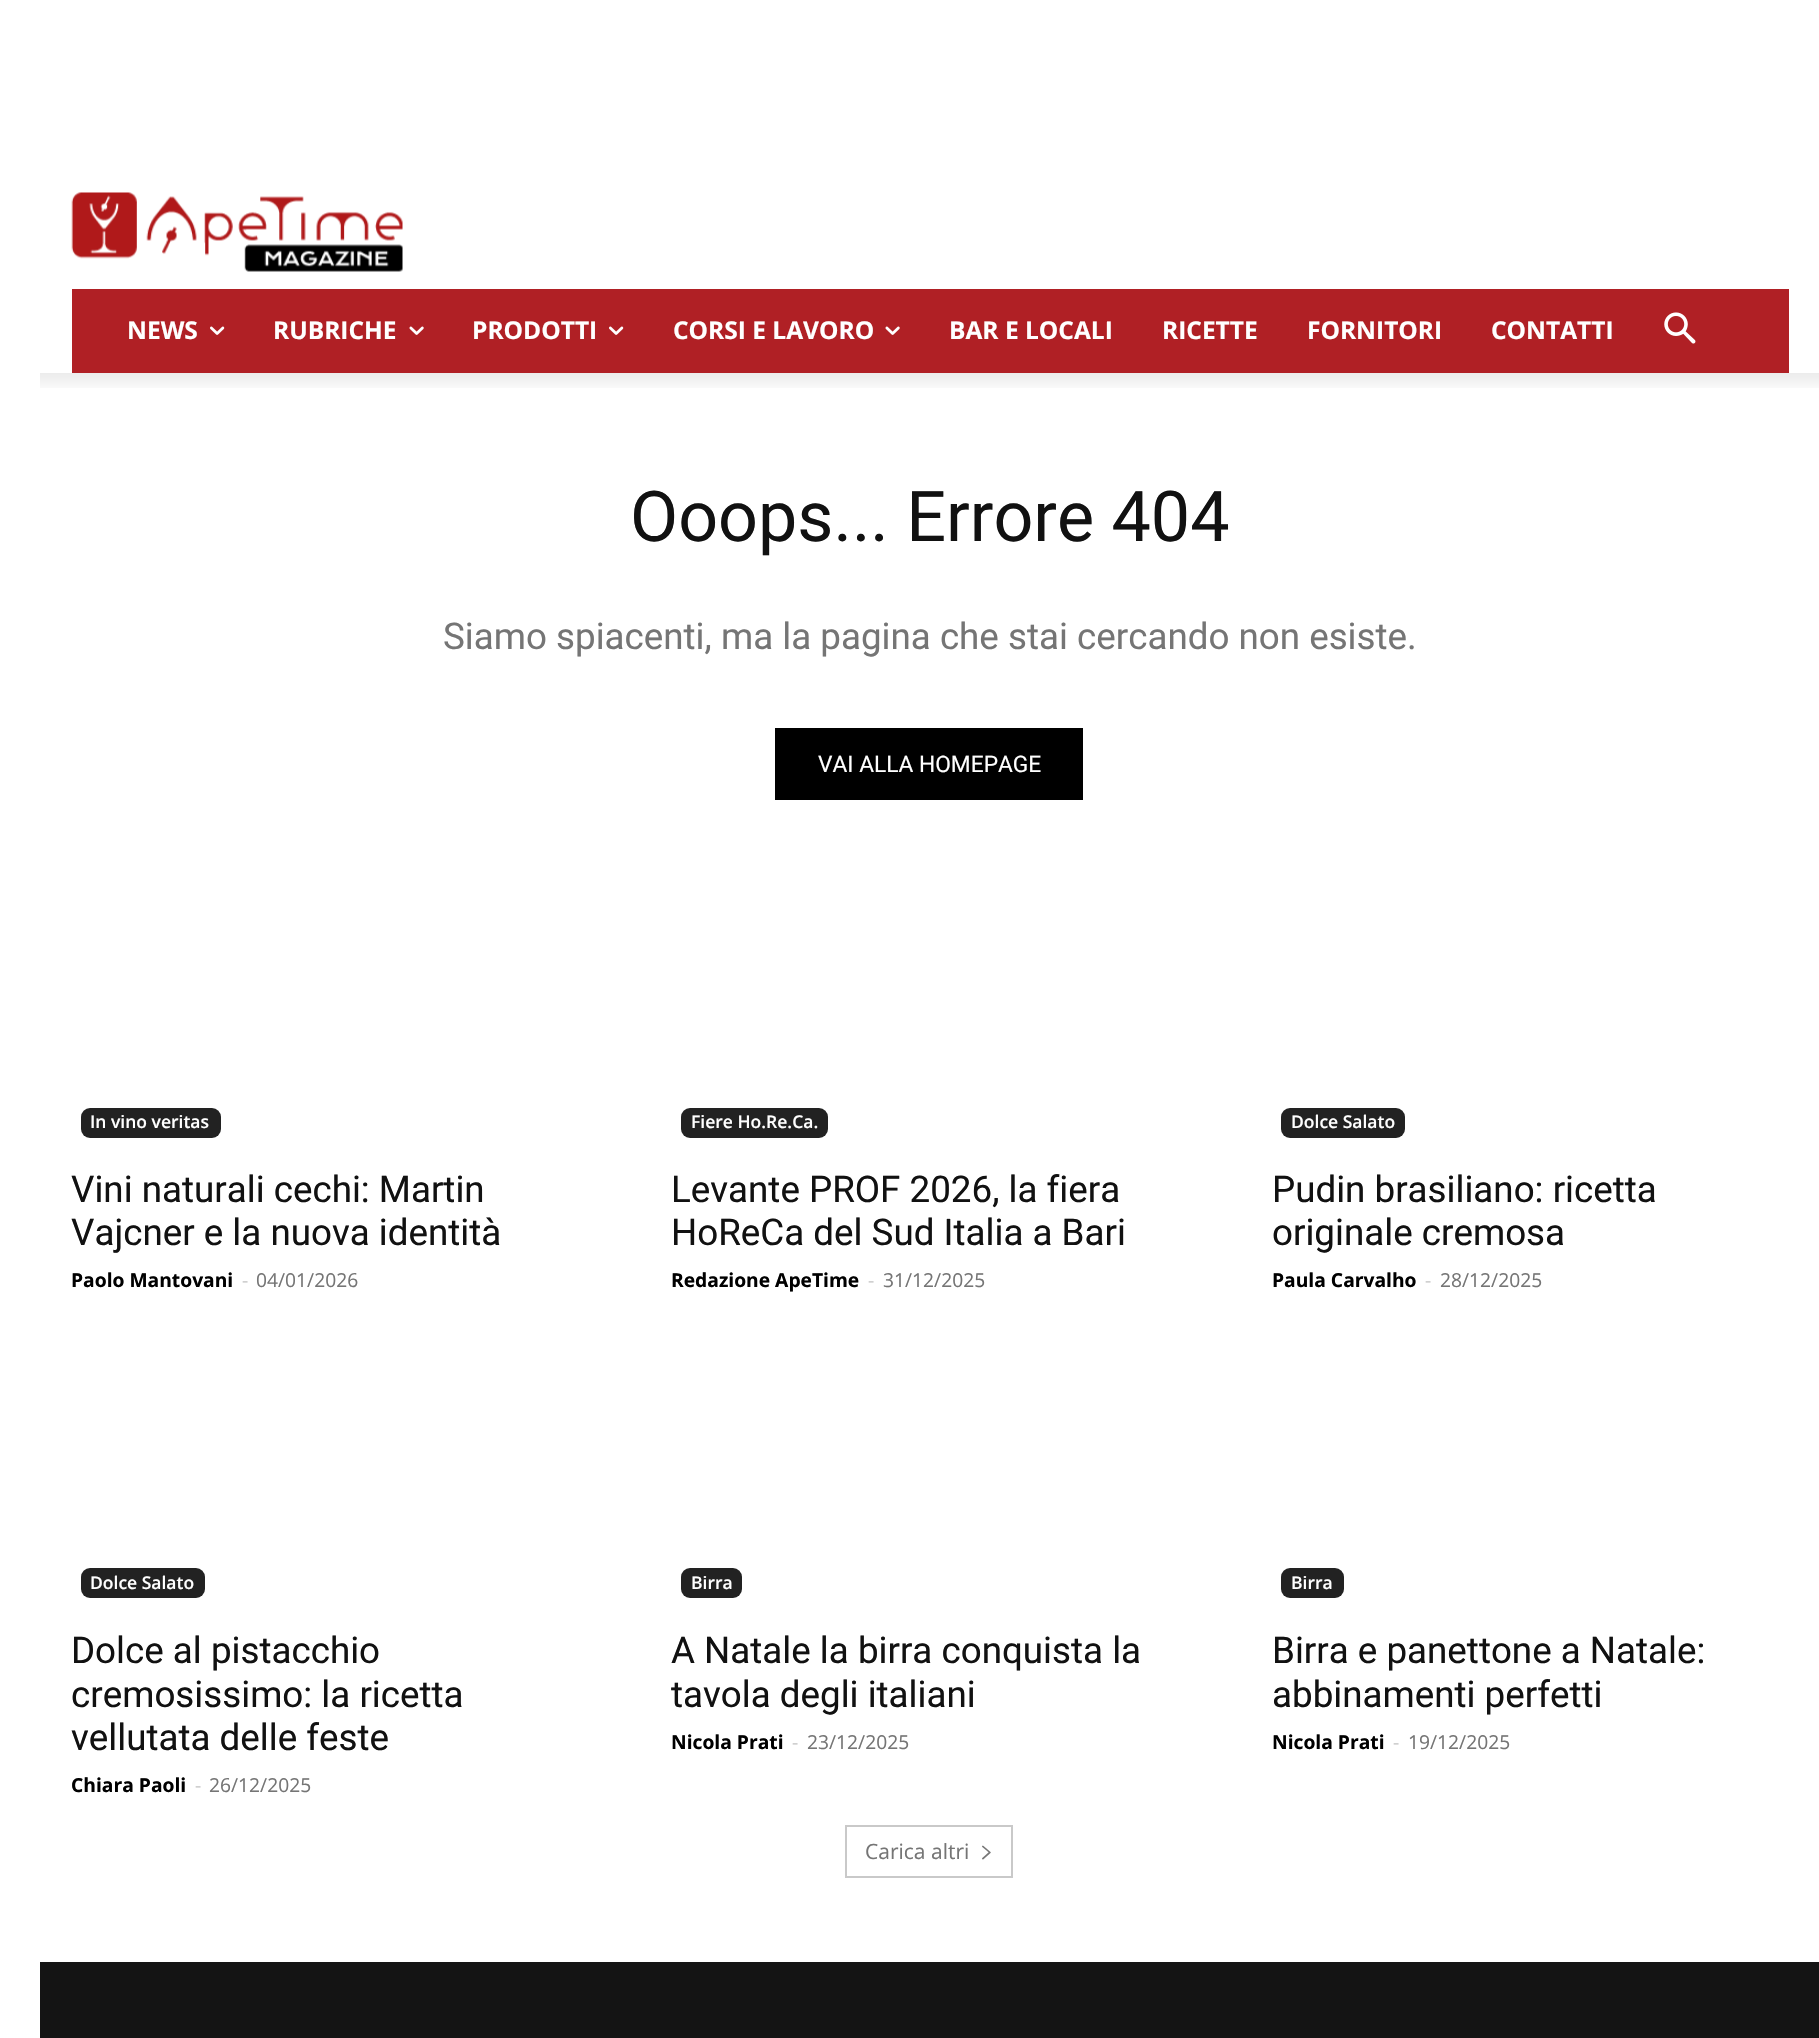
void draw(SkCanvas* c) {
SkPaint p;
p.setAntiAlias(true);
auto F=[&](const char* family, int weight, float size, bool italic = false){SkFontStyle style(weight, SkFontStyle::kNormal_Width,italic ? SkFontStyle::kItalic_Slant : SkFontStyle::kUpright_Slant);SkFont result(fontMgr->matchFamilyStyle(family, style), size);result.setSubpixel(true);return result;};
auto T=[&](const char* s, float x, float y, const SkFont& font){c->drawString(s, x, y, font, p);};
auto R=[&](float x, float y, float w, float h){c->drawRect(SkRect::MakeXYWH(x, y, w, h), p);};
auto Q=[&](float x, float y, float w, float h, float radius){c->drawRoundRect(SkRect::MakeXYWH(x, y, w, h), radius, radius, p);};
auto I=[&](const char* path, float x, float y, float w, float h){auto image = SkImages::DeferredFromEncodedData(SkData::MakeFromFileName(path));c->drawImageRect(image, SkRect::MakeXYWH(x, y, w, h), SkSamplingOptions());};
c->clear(0xffffffff);
I("1.png",71,192,332,80);
p.setColor(0xffb02025);
R(72,289,1717,84);
c->save();
c->clipRect(SkRect::MakeXYWH(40,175,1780,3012));
c->clipRect(SkRect::MakeXYWH(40,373,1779,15));
p.setColor(0x14000000);
p.setMaskFilter(SkMaskFilter::MakeBlur(kNormal_SkBlurStyle, 7));
c->drawRect(SkRect::MakeXYWH(19,186,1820,197),p);
p.setMaskFilter(nullptr);
c->restore();
auto f1 = F("Open Sans",700,24.5);
p.setColor(0xffffffff);
T("NEWS",127,339,f1);
I("2.png",210,326,15,9);
T("RUBRICHE",273,339,f1);
I("3.png",409,326,15,9);
T("PRODOTTI",472,339,f1);
I("2.png",609,326,15,9);
T("CORSI E LAVORO",673,339,f1);
I("3.png",885,326,15,9);
T("BAR E LOCALI",949,339,f1);
T("RICETTE",1162,339,f1);
T("FORNITORI",1307,339,f1);
T("CONTATTI",1491,339,f1);
I("4.png",1664,312,32,32);
auto f2 = F("Roboto",400,70);
p.setColor(0xff111111);
T("Ooops... Errore 404",630,541,f2);
auto f3 = F("Roboto",400,36.75);
p.setColor(0xff757575);
T("Siamo spiacenti, ma la pagina che stai cercando non esiste.",443,649,f3);
p.setColor(0xff000000);
R(775,728,308,72);
auto f4 = F("Roboto",400,22.75);
p.setColor(0xffffffff);
T("VAI ALLA HOMEPAGE",818,772,f4);
p.setColor(0xff222222);
Q(81,1108,140,30,9);
auto f5 = F("Open Sans",600,17.5);
p.setColor(0xffffffff);
T("In vino veritas",90,1128,f5);
p.setColor(0xff111111);
T("Vini naturali cechi: Martin",71,1202,f3);
T("Vajcner e la nuova identità",71,1245,f3);
auto f6 = F("Open Sans",700,19.25);
p.setColor(0xff000000);
T("Paolo Mantovani",71,1287,f6);
auto f7 = F("Open Sans",400,19.25);
p.setColor(0xffcccccc);
T("-",242,1287,f7);
p.setColor(0xff757575);
T("04/01/2026",256,1287,f7);
p.setColor(0xff222222);
Q(681,1108,147,30,9);
p.setColor(0xffffffff);
T("Fiere Ho.Re.Ca.",691,1128,f5);
p.setColor(0xff111111);
T("Levante PROF 2026, la fiera",671,1202,f3);
T("HoReCa del Sud Italia a Bari",671,1245,f3);
p.setColor(0xff000000);
T("Redazione ApeTime",671,1287,f6);
p.setColor(0xffcccccc);
T("-",868,1287,f7);
p.setColor(0xff757575);
T("31/12/2025",883,1287,f7);
p.setColor(0xff222222);
Q(1281,1108,124,30,9);
p.setColor(0xffffffff);
T("Dolce Salato",1291,1128,f5);
p.setColor(0xff111111);
T("Pudin brasiliano: ricetta",1272,1202,f3);
T("originale cremosa",1272,1245,f3);
p.setColor(0xff000000);
T("Paula Carvalho",1272,1287,f6);
p.setColor(0xffcccccc);
T("-",1425,1287,f7);
p.setColor(0xff757575);
T("28/12/2025",1440,1287,f7);
p.setColor(0xff222222);
Q(81,1568,124,30,9);
p.setColor(0xffffffff);
T("Dolce Salato",90,1589,f5);
p.setColor(0xff111111);
T("Dolce al pistacchio",71,1663,f3);
T("cremosissimo: la ricetta",71,1707,f3);
T("vellutata delle feste",71,1750,f3);
p.setColor(0xff000000);
T("Chiara Paoli",71,1792,f6);
p.setColor(0xffcccccc);
T("-",195,1792,f7);
p.setColor(0xff757575);
T("26/12/2025",209,1792,f7);
p.setColor(0xff222222);
Q(681,1568,61,30,9);
p.setColor(0xffffffff);
T("Birra",691,1589,f5);
p.setColor(0xff111111);
T("A Natale la birra conquista la",671,1663,f3);
T("tavola degli italiani",671,1707,f3);
p.setColor(0xff000000);
T("Nicola Prati",671,1749,f6);
p.setColor(0xffcccccc);
T("-",792,1749,f7);
p.setColor(0xff757575);
T("23/12/2025",807,1749,f7);
p.setColor(0xff222222);
Q(1281,1568,63,30,9);
p.setColor(0xffffffff);
T("Birra",1291,1589,f5);
p.setColor(0xff111111);
T("Birra e panettone a Natale:",1272,1663,f3);
T("abbinamenti perfetti",1272,1707,f3);
p.setColor(0xff000000);
T("Nicola Prati",1272,1749,f6);
p.setColor(0xffcccccc);
T("-",1393,1749,f7);
p.setColor(0xff757575);
T("19/12/2025",1408,1749,f7);
p.setStroke(true);
p.setStrokeWidth(2);
p.setColor(0xffc9c9c9);
c->drawRect(SkRect::MakeXYWH(846,1826,166,51),p);
auto f8 = F("Open Sans",400,21);
p.setStroke(false);
p.setColor(0xff757575);
T("Carica altri",865,1859,f8);
I("5.png",982,1845,9,15);
p.setColor(0xff141414);
R(40,1962,1779,76);
}
